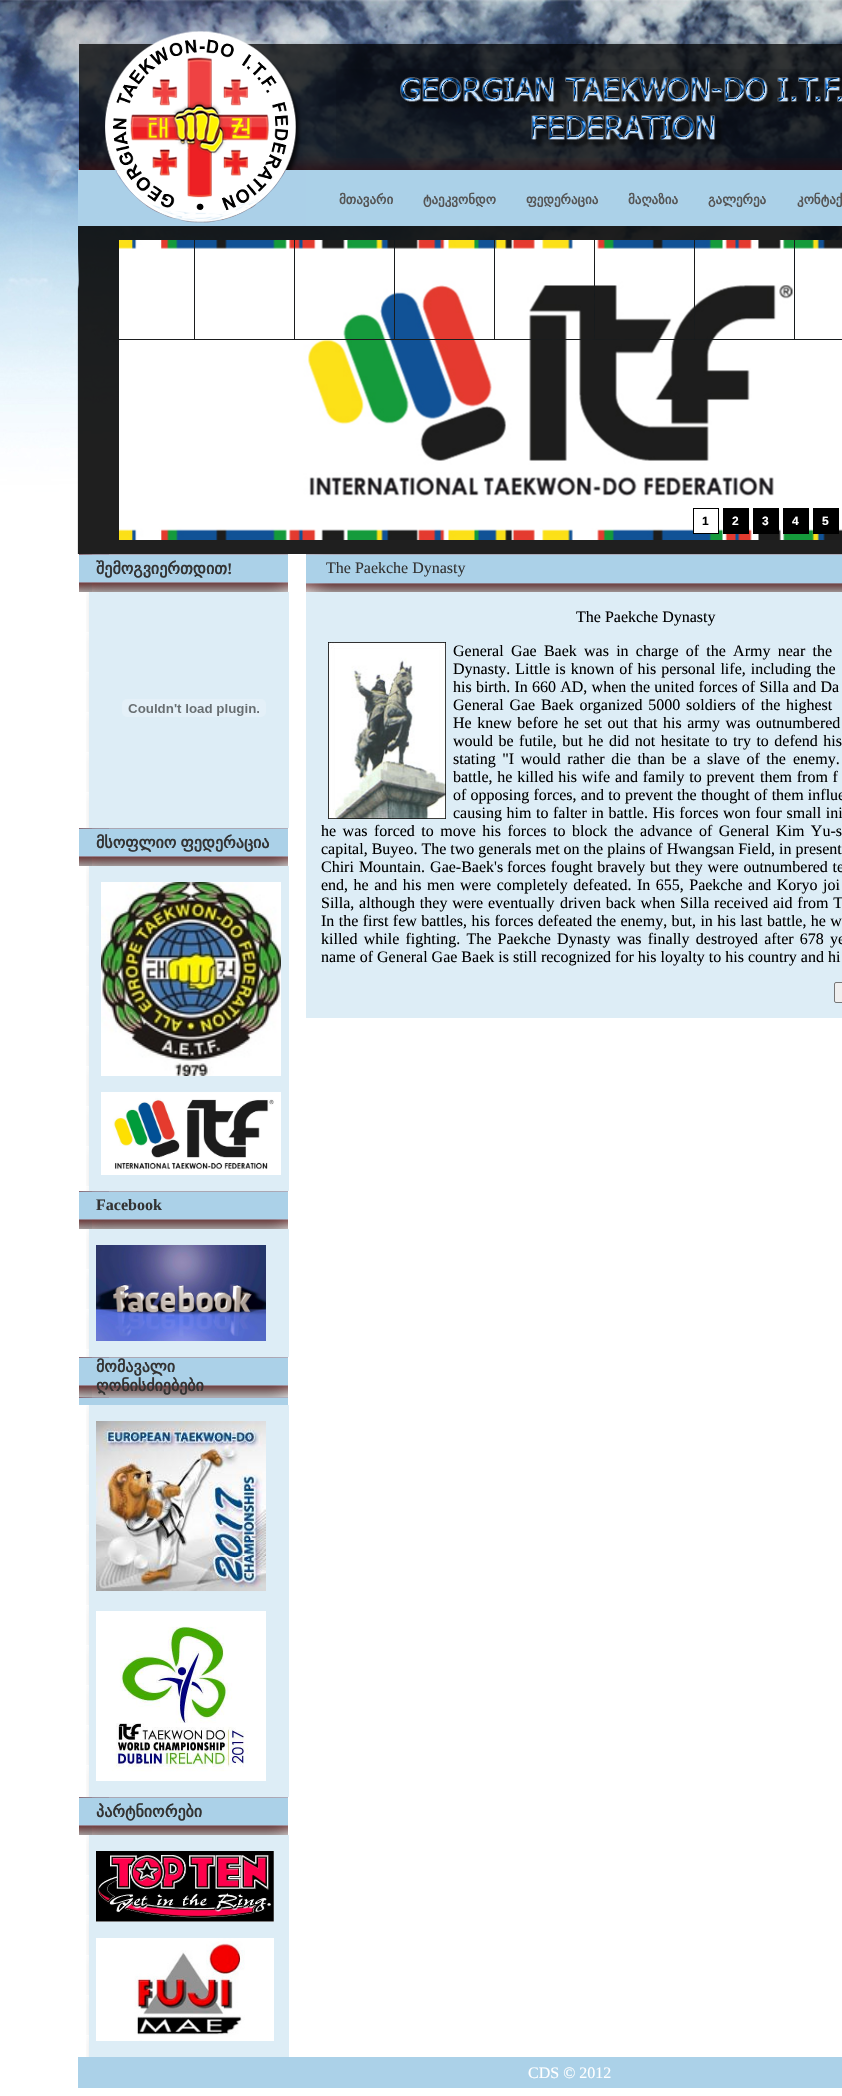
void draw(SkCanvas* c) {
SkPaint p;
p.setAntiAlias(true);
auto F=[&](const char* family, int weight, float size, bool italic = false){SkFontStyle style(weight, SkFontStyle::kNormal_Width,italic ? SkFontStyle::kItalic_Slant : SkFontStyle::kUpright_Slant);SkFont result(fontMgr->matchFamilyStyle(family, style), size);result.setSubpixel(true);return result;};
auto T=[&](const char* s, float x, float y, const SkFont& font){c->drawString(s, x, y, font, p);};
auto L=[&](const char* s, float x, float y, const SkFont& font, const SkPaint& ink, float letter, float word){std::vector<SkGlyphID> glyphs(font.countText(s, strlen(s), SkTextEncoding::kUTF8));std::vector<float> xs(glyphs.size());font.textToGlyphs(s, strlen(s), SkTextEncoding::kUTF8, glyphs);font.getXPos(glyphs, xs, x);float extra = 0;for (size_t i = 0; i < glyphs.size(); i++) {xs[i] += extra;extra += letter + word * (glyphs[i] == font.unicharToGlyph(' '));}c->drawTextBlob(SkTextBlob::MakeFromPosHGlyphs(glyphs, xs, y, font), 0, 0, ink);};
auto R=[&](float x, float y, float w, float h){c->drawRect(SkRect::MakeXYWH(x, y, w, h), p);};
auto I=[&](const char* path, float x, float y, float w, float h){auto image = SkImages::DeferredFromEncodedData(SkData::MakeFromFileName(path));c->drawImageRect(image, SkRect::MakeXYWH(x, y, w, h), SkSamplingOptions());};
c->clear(0xffffffff);
I("1.png",0,0,842,492);
I("2.png",79,31,763,139);
I("3.png",46,170,260,56);
p.setColor(0xffabd1e8);
R(306,170,536,56);
auto f1 = F("DejaVu Sans",700,13);
p.setColor(0xff555555);
T("მთავარი",339,204,f1);
T("ტაეკვონდო",423,204,f1);
T("ფედერაცია",526,204,f1);
T("მაღაზია",628,204,f1);
T("გალერეა",708,204,f1);
T("კონტაქ",797,204,f1);
I("4.png",77,226,765,328);
I("5.png",119,240,75,99);
I("6.png",195,240,99,99);
I("7.png",295,240,99,99);
I("8.png",395,240,99,99);
I("9.png",495,240,99,99);
I("10.png",595,240,99,99);
I("11.png",695,240,99,99);
I("12.png",795,240,47,99);
p.setColor(0xffffffff);
R(119,340,176,100);
I("13.png",295,340,100,100);
I("14.png",395,340,100,100);
I("15.png",495,340,100,100);
I("16.png",595,340,100,100);
I("17.png",695,340,100,100);
R(795,340,47,100);
I("18.png",119,440,76,100);
I("19.png",195,440,100,100);
I("20.png",295,440,100,100);
I("21.png",395,440,100,100);
I("22.png",495,440,100,100);
I("23.png",595,440,100,100);
I("24.png",695,440,100,100);
I("25.png",795,440,47,100);
R(694,529,24,4);
p.setStroke(true);
p.setStrokeWidth(1);
p.setColor(0xff000000);
c->drawRect(SkRect::MakeXYWH(693.5,508.5,25,25),p);
auto f2 = F("Liberation Sans",700,12);
p.setStroke(false);
T("1",702,525,f2);
R(723,508,26,26);
p.setColor(0xffffffff);
T("2",732,525,f2);
p.setColor(0xff000000);
R(753,508,26,26);
p.setColor(0xffffffff);
T("3",762,525,f2);
p.setColor(0xff000000);
R(783,508,26,26);
p.setColor(0xffffffff);
T("4",792,525,f2);
p.setColor(0xff000000);
R(813,508,26,26);
p.setColor(0xffffffff);
T("5",822,525,f2);
I("26.png",79,554,209,38);
auto f3 = F("DejaVu Sans",700,16);
p.setColor(0xff333333);
T("შემოგვიერთდით",96,574,f3);
auto f4 = F("Liberation Serif",700,16);
T("!",227,574,f4);
I("27.png",86,592,203,236);
I("28.png",122,699,144,18);
I("26.png",79,828,209,38);
L("მსოფლიო ფედერაცია",96,848,f3,p,0,-1);
I("29.png",86,866,203,325);
I("30.png",101,882,180,194);
I("31.png",101,1092,180,83);
I("26.png",79,1191,209,38);
T("Facebook",96,1210,f4);
I("32.png",86,1229,203,128);
I("33.png",96,1245,170,96);
I("34.png",79,1357,209,48);
T("მომავალი",96,1372,f3);
T("ღონისძიებები",96,1391,f3);
I("35.png",86,1405,203,392);
I("36.png",96,1421,170,170);
I("37.png",96,1611,170,170);
I("26.png",79,1797,209,38);
T("პარტნიორები",96,1817,f3);
I("38.png",86,1835,203,222);
I("39.png",96,1851,178,71);
I("40.png",96,1938,178,103);
I("41.png",306,554,536,38);
auto f5 = F("Liberation Serif",400,16);
T("The Paekche Dynasty",326,573,f5);
p.setColor(0xffddedf6);
R(306,592,536,426);
p.setColor(0xff000000);
T("The Paekche Dynasty",576,622,f5);
I("42.png",328,642,118,177);
L("General Gae Baek was in charge of the Army near the",453,656,f5,p,0,3.25);
L("Dynasty. Little is known of his personal life, including the",453,674,f5,p,0,1);
L("his birth. In 660 AD, when the united forces of Silla and Da",453,692,f5,p,0,.25);
L("General Gae Baek organized 5000 soldiers of the highest",453,710,f5,p,0,1.75);
L("He knew before he set out that his army was outnumbered",453,728,f5,p,0,1.5);
L("would be futile, but he did not hesitate to try to defend his",453,746,f5,p,0,1.5);
L("stating \"I would rather die than be a slave of the",453,764,f5,p,0,2.6);
L("enemy.",793,764,f5,p,0,3);
L("battle, he killed his wife and family to prevent",453,782,f5,p,0,.75);
L("them from f",760,782,f5,p,0,.75);
L("of opposing forces, and to prevent the thought of them influe",453,800,f5,p,0,.25);
L("causing him to falter in battle. His forces won four small ini",453,818,f5,p,0,.6);
L("he was forced to move his forces to block",321,836,f5,p,0,2.5);
L("the advance of General Kim Yu-s",614,836,f5,p,0,2.5);
T("capital, Buyeo. The two generals met on the plains of Hwangsan Field, in present",321,854,f5);
L("Chiri Mountain. Gae-Baek's",321,872,f5,p,0,1);
L("forces fought bravely but they were outnumbered te",507,872,f5,p,0,.75);
L("end, he and his",321,890,f5,p,0,1.5);
L("men were completely defeated. In 655, Paekche and Koryo joi",427,890,f5,p,0,1.5);
L("Silla, although they were eventually",321,908,f5,p,0,.75);
L("driven back when Silla received aid from T",560,908,f5,p,0,.75);
L("In the first few battles, his forces defeated the enemy, but, in his last battle, he w",321,926,f5,p,0,.4);
L("killed while fighting. The Paekche Dynasty was finally destroyed after 678",321,944,f5,p,0,2.25);
L("ye",830,944,f5,p,0,2.25);
T("name of General Gae Baek is still recognized for his loyalty to his country and hi",321,962,f5);
p.setColor(0xffefefef);
c->drawRoundRect(SkRect::MakeXYWH(834.5,982.5,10,20),1.5,1.5,p);
p.setStroke(true);
p.setColor(0xff767676);
c->drawRoundRect(SkRect::MakeXYWH(834.5,982.5,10,20),1.5,1.5,p);
p.setStroke(false);
p.setColor(0xffabd1e8);
R(78,2057,764,31);
p.setColor(0xffffffff);
T("CDS © 2012",528,2078,f5);
}
